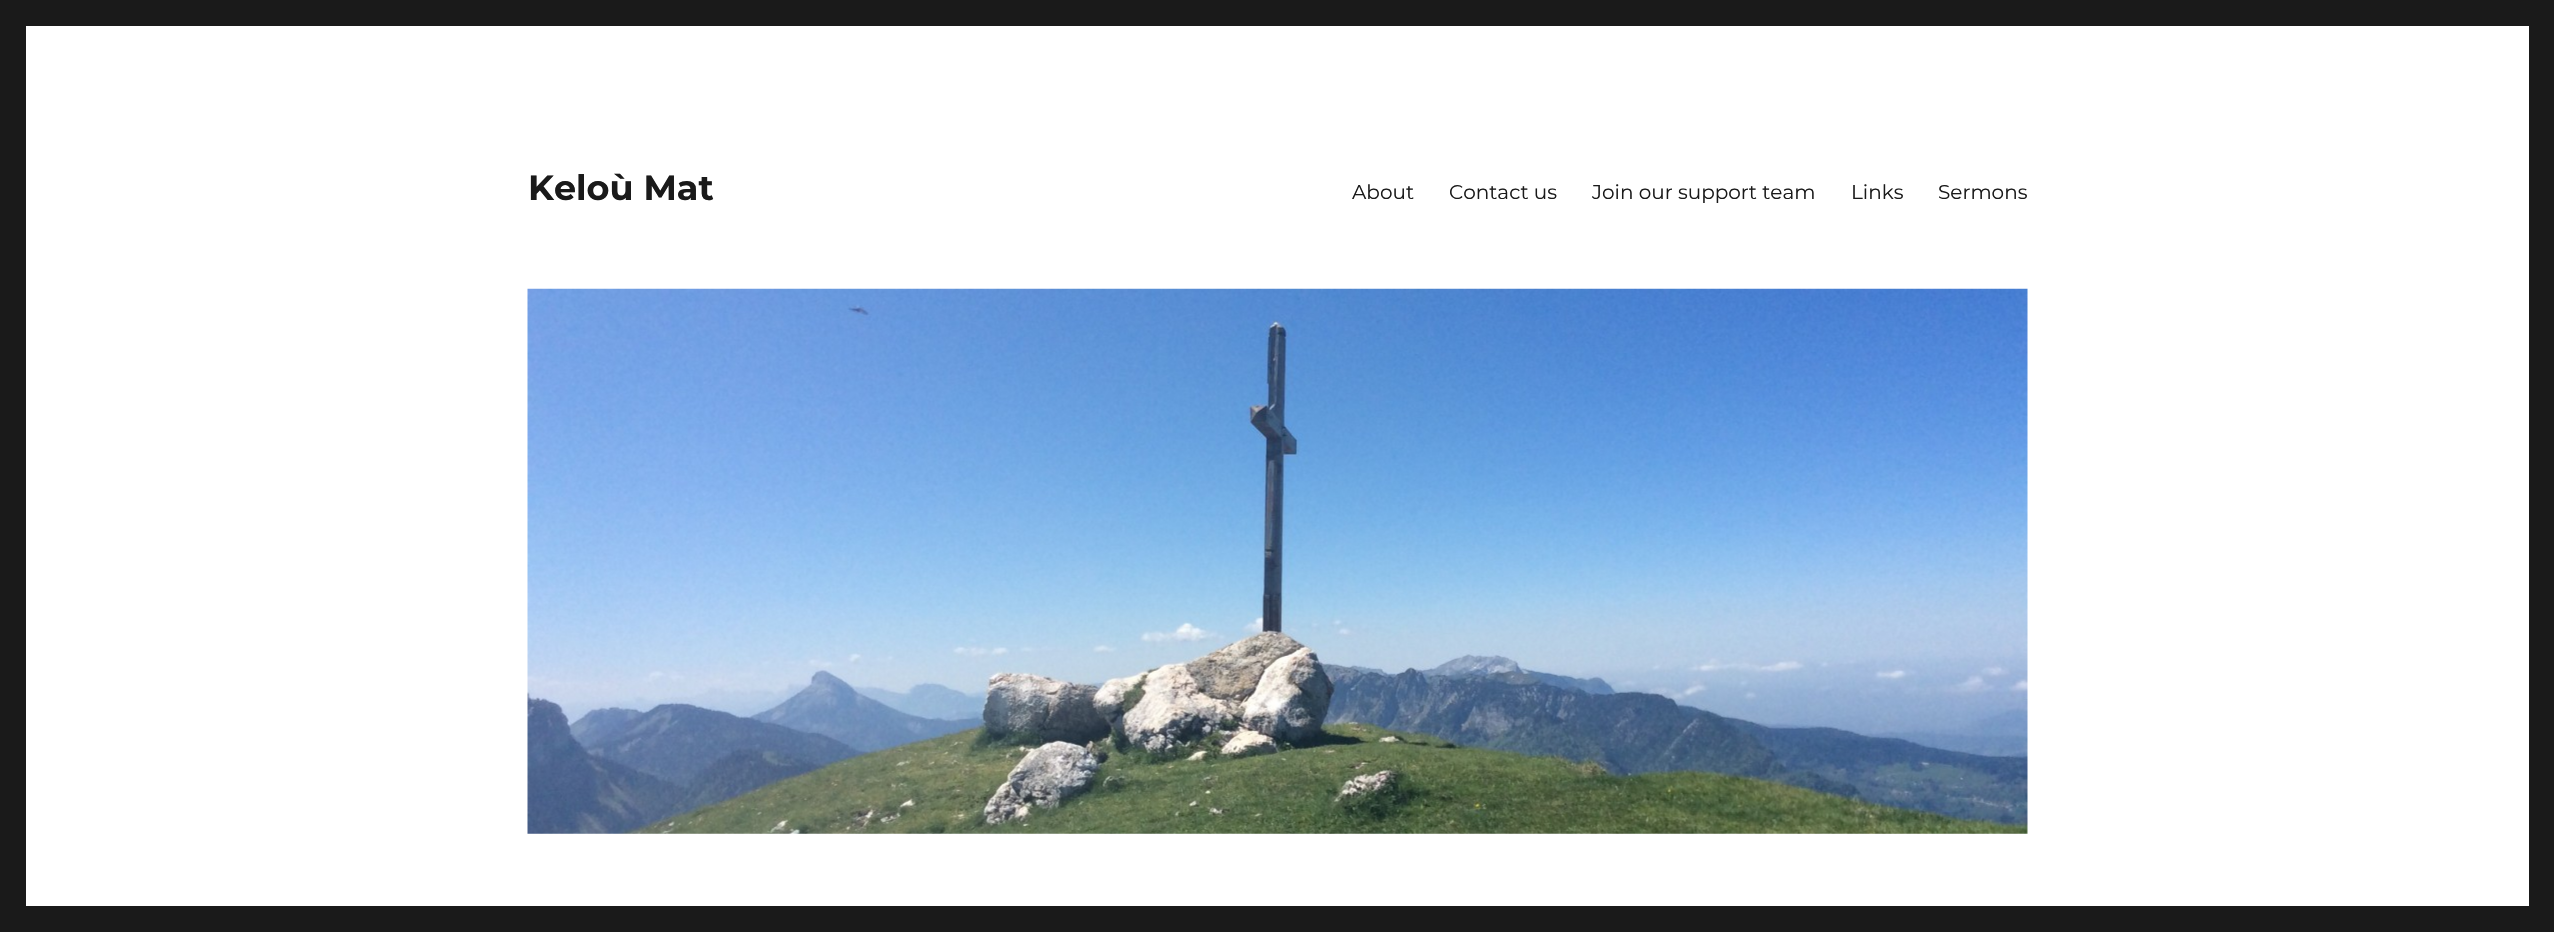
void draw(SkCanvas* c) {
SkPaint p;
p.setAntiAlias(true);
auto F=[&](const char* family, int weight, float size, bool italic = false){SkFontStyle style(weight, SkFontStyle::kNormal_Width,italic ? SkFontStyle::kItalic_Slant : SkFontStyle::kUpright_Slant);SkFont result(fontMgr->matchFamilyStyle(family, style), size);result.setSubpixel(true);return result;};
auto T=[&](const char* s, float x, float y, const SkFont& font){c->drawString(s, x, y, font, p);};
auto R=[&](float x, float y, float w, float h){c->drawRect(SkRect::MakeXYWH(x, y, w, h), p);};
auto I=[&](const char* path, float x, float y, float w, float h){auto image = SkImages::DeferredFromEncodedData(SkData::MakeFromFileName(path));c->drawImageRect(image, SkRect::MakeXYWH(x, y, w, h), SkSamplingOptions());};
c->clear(0xff1a1a1a);
p.setColor(0xffffffff);
R(26,26,2503,880);
auto f1 = F("Montserrat",700,35);
p.setColor(0xff1a1a1a);
T("Keloù Mat",528,200,f1);
auto f2 = F("Montserrat",400,20);
T("About",1352,199,f2);
T("Contact us",1449,199,f2);
T("Join our support team",1592,199,f2);
T("Links",1851,199,f2);
T("Sermons",1938,199,f2);
I("1.png",527,288,1501,546);
}
